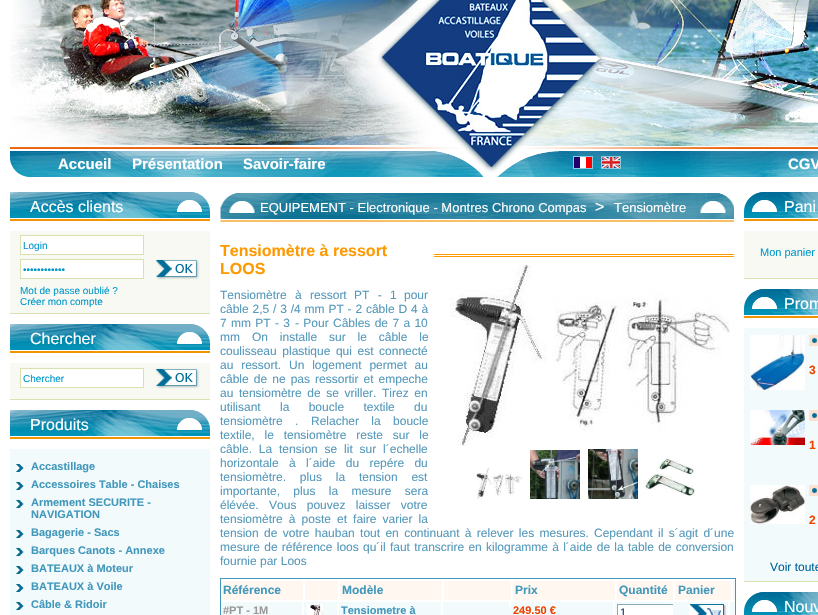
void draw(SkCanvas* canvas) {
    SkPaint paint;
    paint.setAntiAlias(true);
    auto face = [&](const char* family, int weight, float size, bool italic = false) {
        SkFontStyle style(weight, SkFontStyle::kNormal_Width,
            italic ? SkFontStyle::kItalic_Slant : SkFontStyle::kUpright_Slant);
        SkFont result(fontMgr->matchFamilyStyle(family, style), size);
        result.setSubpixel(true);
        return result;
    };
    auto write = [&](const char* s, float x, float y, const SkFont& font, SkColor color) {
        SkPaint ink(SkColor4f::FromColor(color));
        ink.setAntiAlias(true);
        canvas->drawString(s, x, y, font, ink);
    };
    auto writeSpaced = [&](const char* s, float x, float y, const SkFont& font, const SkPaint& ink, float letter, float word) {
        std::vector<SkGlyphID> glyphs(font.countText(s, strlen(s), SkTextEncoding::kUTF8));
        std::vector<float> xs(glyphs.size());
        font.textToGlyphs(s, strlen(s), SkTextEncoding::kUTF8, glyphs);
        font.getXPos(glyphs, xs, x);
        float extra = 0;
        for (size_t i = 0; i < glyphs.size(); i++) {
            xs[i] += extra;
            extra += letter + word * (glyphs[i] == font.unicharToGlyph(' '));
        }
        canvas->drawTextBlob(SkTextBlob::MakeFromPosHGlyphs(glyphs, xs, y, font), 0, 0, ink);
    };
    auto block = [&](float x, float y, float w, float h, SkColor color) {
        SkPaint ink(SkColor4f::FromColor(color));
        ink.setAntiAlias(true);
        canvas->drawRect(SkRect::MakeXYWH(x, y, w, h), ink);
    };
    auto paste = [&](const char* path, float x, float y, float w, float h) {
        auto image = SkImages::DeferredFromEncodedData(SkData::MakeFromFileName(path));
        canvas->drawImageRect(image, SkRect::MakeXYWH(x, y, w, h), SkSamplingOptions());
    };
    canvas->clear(SK_ColorWHITE);
    paste("pic1.png", 10, 0, 808, 151);
    paste("pic2.png", 10, 151, 808, 26);
    auto kFont1 = face("Liberation Sans", 700, 15);
    write("Accueil", 58, 169, kFont1, SK_ColorWHITE);
    write("Présentation", 132, 169, kFont1, SK_ColorWHITE);
    write("Savoir-faire", 243, 169, kFont1, SK_ColorWHITE);
    paint.setStyle(SkPaint::kStroke_Style);
    paint.setStrokeWidth(1);
    paint.setColor(SkColorSetRGB(136, 204, 221));
    canvas->drawRect(SkRect::MakeXYWH(573.5f, 156.5f, 19, 12), paint);
    canvas->drawRect(SkRect::MakeXYWH(601.5f, 156.5f, 19, 12), paint);
    paste("pic3.png", 574, 157, 18, 11);
    paste("pic4.png", 602, 157, 18, 11);
    write("CGV", 788, 169, kFont1, SK_ColorWHITE);
    paste("pic5.png", 10, 192, 200, 29);
    auto kFont2 = face("Liberation Sans", 400, 16);
    write("Accès clients", 30, 212, kFont2, SK_ColorWHITE);
    block(10, 231, 200, 82, SkColorSetRGB(248, 249, 243));
    block(10, 313, 200, 1, SkColorSetRGB(217, 225, 176));
    paint.setStyle(SkPaint::kFill_Style);
    paint.setColor(SK_ColorWHITE);
    canvas->drawRect(SkRect::MakeXYWH(20.5f, 235.5f, 123, 19), paint);
    paint.setStyle(SkPaint::kStroke_Style);
    paint.setColor(SkColorSetRGB(217, 225, 176));
    canvas->drawRect(SkRect::MakeXYWH(20.5f, 235.5f, 123, 19), paint);
    auto kFont3 = face("Liberation Sans", 400, 10);
    write("Login", 23, 249, kFont3, SkColorSetRGB(0, 153, 204));
    paint.setStyle(SkPaint::kFill_Style);
    paint.setColor(SK_ColorWHITE);
    canvas->drawRect(SkRect::MakeXYWH(20.5f, 259.5f, 123, 19), paint);
    paint.setStyle(SkPaint::kStroke_Style);
    paint.setColor(SkColorSetRGB(217, 225, 176));
    canvas->drawRect(SkRect::MakeXYWH(20.5f, 259.5f, 123, 19), paint);
    write("••••••••••••", 23, 273, kFont3, SkColorSetRGB(0, 153, 204));
    paste("pic6.png", 156, 259, 44, 21);
    write("Mot de passe oublié ?", 20, 294, kFont3, SkColorSetRGB(0, 153, 204));
    write("Créer mon compte", 20, 305, kFont3, SkColorSetRGB(0, 153, 204));
    paste("pic5.png", 10, 324, 200, 29);
    write("Chercher", 30, 344, kFont2, SK_ColorWHITE);
    block(10, 363, 200, 36, SkColorSetRGB(248, 249, 243));
    block(10, 399, 200, 1, SkColorSetRGB(217, 225, 176));
    paint.setStyle(SkPaint::kFill_Style);
    paint.setColor(SK_ColorWHITE);
    canvas->drawRect(SkRect::MakeXYWH(20.5f, 368.5f, 123, 19), paint);
    paint.setStyle(SkPaint::kStroke_Style);
    paint.setColor(SkColorSetRGB(217, 225, 176));
    canvas->drawRect(SkRect::MakeXYWH(20.5f, 368.5f, 123, 19), paint);
    write("Chercher", 23, 382, kFont3, SkColorSetRGB(0, 153, 204));
    paste("pic6.png", 156, 368, 44, 21);
    paste("pic5.png", 10, 410, 200, 29);
    write("Produits", 30, 430, kFont2, SK_ColorWHITE);
    block(10, 449, 200, 166, SkColorSetRGB(242, 250, 252));
    paste("pic7.png", 16, 464, 8, 8);
    auto kFont4 = face("Liberation Sans", 700, 11);
    write("Accastillage", 31, 470, kFont4, SkColorSetRGB(66, 152, 187));
    paste("pic7.png", 16, 482, 8, 8);
    write("Accessoires Table - Chaises", 31, 488, kFont4, SkColorSetRGB(66, 152, 187));
    paste("pic7.png", 16, 500, 8, 8);
    write("Armement SECURITE -", 31, 506, kFont4, SkColorSetRGB(66, 152, 187));
    write("NAVIGATION", 31, 518, kFont4, SkColorSetRGB(66, 152, 187));
    paste("pic7.png", 16, 530, 8, 8);
    write("Bagagerie - Sacs", 31, 536, kFont4, SkColorSetRGB(66, 152, 187));
    paste("pic7.png", 16, 548, 8, 8);
    write("Barques Canots - Annexe", 31, 554, kFont4, SkColorSetRGB(66, 152, 187));
    paste("pic7.png", 16, 566, 8, 8);
    write("BATEAUX à Moteur", 31, 572, kFont4, SkColorSetRGB(66, 152, 187));
    paste("pic7.png", 16, 584, 8, 8);
    write("BATEAUX à Voile", 31, 590, kFont4, SkColorSetRGB(66, 152, 187));
    paste("pic7.png", 16, 602, 8, 8);
    write("Câble & Ridoir", 31, 608, kFont4, SkColorSetRGB(66, 152, 187));
    paste("pic8.png", 220, 193, 514, 29);
    auto kFont5 = face("Liberation Sans", 400, 13);
    write("EQUIPEMENT - Electronique - Montres Chrono Compas", 260, 212, kFont5, SK_ColorWHITE);
    write(">", 595, 212, kFont2, SK_ColorWHITE);
    write("Tensiomètre", 614, 212, kFont5, SK_ColorWHITE);
    auto kFont6 = face("Liberation Sans", 700, 16);
    write("Tensiomètre à ressort", 220, 256, kFont6, SkColorSetRGB(255, 153, 0));
    write("LOOS", 220, 274, kFont6, SkColorSetRGB(255, 153, 0));
    auto kFont7 = face("Liberation Sans", 400, 12);
    paint.setStyle(SkPaint::kFill_Style);
    paint.setColor(SkColorSetRGB(85, 153, 187));
    writeSpaced("Tensiomètre à ressort", 220, 299, kFont7, paint, 0, 5);
    writeSpaced("PT - 1", 354, 299, kFont7, paint, 0, 5);
    write("pour", 404, 299, kFont7, SkColorSetRGB(85, 153, 187));
    writeSpaced("câble 2,5 / 3 /4 mm PT - 2 câble D 4 à", 220, 313, kFont7, paint, 0, 0.5f);
    writeSpaced("7 mm PT - 3", 220, 327, kFont7, paint, 0, 1);
    writeSpaced("- Pour Câbles de 7 a 10", 295, 327, kFont7, paint, 0, 1);
    write("mm", 220, 341, kFont7, SkColorSetRGB(85, 153, 187));
    writeSpaced("On installe sur le câble le", 252, 341, kFont7, paint, 0, 8.5f);
    writeSpaced("coulisseau plastique qui est connecté", 220, 355, kFont7, paint, 0, 2.25f);
    writeSpaced("au ressort. Un logement permet au", 220, 369, kFont7, paint, 0, 4.5f);
    writeSpaced("câble de ne pas ressortir et empeche", 220, 383, kFont7, paint, 0, 1.75f);
    writeSpaced("au tensiomètre de se vriller. Tirez en", 220, 397, kFont7, paint, 0, 2.25f);
    writeSpaced("utilisant la boucle textile du", 220, 411, kFont7, paint, 0, 16);
    writeSpaced("tensiomètre .", 220, 425, kFont7, paint, 0, 9);
    writeSpaced("Relacher la boucle", 311, 425, kFont7, paint, 0, 9);
    writeSpaced("textile, le tensiomètre reste sur le", 220, 439, kFont7, paint, 0, 6.5f);
    writeSpaced("câble. La tension se lit sur l´echelle", 220, 453, kFont7, paint, 0, 3.5f);
    writeSpaced("horizontale à l´aide du repére du", 220, 467, kFont7, paint, 0, 7);
    writeSpaced("tensiomètre. plus la tension est", 220, 481, kFont7, paint, 0, 10.5f);
    writeSpaced("importante, plus la mesure sera", 220, 495, kFont7, paint, 0, 10);
    writeSpaced("élévée. Vous pouvez laisser votre", 220, 509, kFont7, paint, 0, 7);
    writeSpaced("tensiomètre à poste et faire varier la", 220, 523, kFont7, paint, 0, 2.75f);
    writeSpaced("tension de votre hauban tout en continuant à relever les mesures.", 220, 537, kFont7, paint, 0, 2);
    writeSpaced("Cependant il s´agit d´une", 594, 537, kFont7, paint, 0, 2);
    writeSpaced("mesure de référence loos qu´il faut transcrire en kilogramme à l´aide de la table de conversion", 220, 551, kFont7, paint, 0, 0.9f);
    write("fournie par Loos", 220, 565, kFont7, SkColorSetRGB(85, 153, 187));
    block(434, 254, 300, 1, SkColorSetRGB(255, 153, 0));
    block(434, 256, 300, 1, SkColorSetRGB(255, 153, 0));
    paste("pic9.png", 450, 265, 280, 182);
    paste("pic10.png", 476, 467, 47, 32);
    paste("pic11.png", 530, 450, 50, 49);
    paste("pic12.png", 588, 449, 50, 50);
    paste("pic13.png", 645, 457, 50, 39);
    block(221, 581, 514, 34, SkColorSetRGB(242, 250, 252));
    paint.setStyle(SkPaint::kStroke_Style);
    paint.setColor(SkColorSetRGB(66, 152, 187));
    canvas->drawRect(SkRect::MakeXYWH(220.5f, 578.5f, 515, 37), paint);
    block(221, 581, 82, 19, SkColorSetRGB(255, 247, 240));
    block(303, 581, 2, 19, SK_ColorWHITE);
    auto kFont8 = face("Liberation Sans", 700, 12);
    write("Référence", 223, 594, kFont8, SkColorSetRGB(66, 152, 187));
    block(305, 581, 33, 19, SkColorSetRGB(255, 247, 240));
    block(338, 581, 2, 19, SK_ColorWHITE);
    block(340, 581, 102, 19, SkColorSetRGB(255, 247, 240));
    block(442, 581, 2, 19, SK_ColorWHITE);
    write("Modèle", 342, 594, kFont8, SkColorSetRGB(66, 152, 187));
    block(444, 581, 67, 19, SkColorSetRGB(255, 247, 240));
    block(511, 581, 2, 19, SK_ColorWHITE);
    block(513, 581, 102, 19, SkColorSetRGB(255, 247, 240));
    block(615, 581, 2, 19, SK_ColorWHITE);
    write("Prix", 515, 594, kFont8, SkColorSetRGB(66, 152, 187));
    block(617, 581, 56, 19, SkColorSetRGB(255, 247, 240));
    block(673, 581, 2, 19, SK_ColorWHITE);
    write("Quantité", 619, 594, kFont8, SkColorSetRGB(66, 152, 187));
    block(675, 581, 56, 19, SkColorSetRGB(255, 247, 240));
    block(731, 581, 2, 19, SK_ColorWHITE);
    write("Panier", 678, 594, kFont8, SkColorSetRGB(66, 152, 187));
    block(221, 600, 514, 2, SK_ColorWHITE);
    block(302, 602, 2, 13, SK_ColorWHITE);
    write("#PT - 1M", 223, 614, kFont4, SkColorSetRGB(153, 153, 153));
    block(337, 602, 2, 13, SK_ColorWHITE);
    paste("pic14.png", 307, 604, 16, 11);
    block(441, 602, 2, 13, SK_ColorWHITE);
    write("Tensiometre à", 341, 614, kFont4, SkColorSetRGB(66, 152, 187));
    block(509, 602, 2, 5, SK_ColorWHITE);
    block(613, 602, 2, 13, SK_ColorWHITE);
    write("249.50 €", 513, 614, kFont4, SkColorSetRGB(238, 68, 0));
    block(671, 602, 2, 2, SK_ColorWHITE);
    block(618, 605, 55, 10, SK_ColorWHITE);
    block(617, 604, 58, 1, SkColorSetRGB(136, 170, 187));
    block(617, 604, 1, 11, SkColorSetRGB(136, 170, 187));
    auto kFont9 = face("Liberation Sans", 400, 11);
    write("1", 620, 616, kFont9, SkColorSetRGB(0, 51, 102));
    block(673, 604, 2, 1, SkColorSetRGB(242, 250, 252));
    block(728, 602, 2, 13, SK_ColorWHITE);
    paste("pic15.png", 689, 604, 37, 11);
    paste("pic16.png", 744, 192, 74, 29);
    write("Pani", 784, 212, kFont2, SK_ColorWHITE);
    block(744, 231, 74, 47, SkColorSetRGB(248, 249, 243));
    block(744, 278, 74, 1, SkColorSetRGB(217, 225, 176));
    write("Mon panier", 760, 256, kFont9, SkColorSetRGB(0, 153, 204));
    paste("pic16.png", 744, 289, 74, 29);
    write("Prom", 784, 309, kFont2, SK_ColorWHITE);
    block(744, 328, 74, 253, SkColorSetRGB(242, 250, 252));
    block(744, 581, 74, 1, SkColorSetRGB(217, 225, 176));
    paste("pic17.png", 750, 335, 55, 55);
    paste("pic18.png", 809, 335, 9, 11);
    write("3", 809, 374, kFont8, SkColorSetRGB(238, 68, 0));
    paste("pic19.png", 750, 410, 55, 35);
    paste("pic18.png", 809, 410, 9, 11);
    write("1", 809, 449, kFont8, SkColorSetRGB(238, 68, 0));
    paste("pic20.png", 750, 485, 55, 39);
    paste("pic18.png", 809, 485, 9, 11);
    write("2", 809, 524, kFont8, SkColorSetRGB(238, 68, 0));
    write("Voir toute", 770, 571, kFont7, SkColorSetRGB(0, 102, 153));
    paste("pic21.png", 744, 592, 74, 23);
    write("Nouv", 784, 612, kFont2, SK_ColorWHITE);
}
